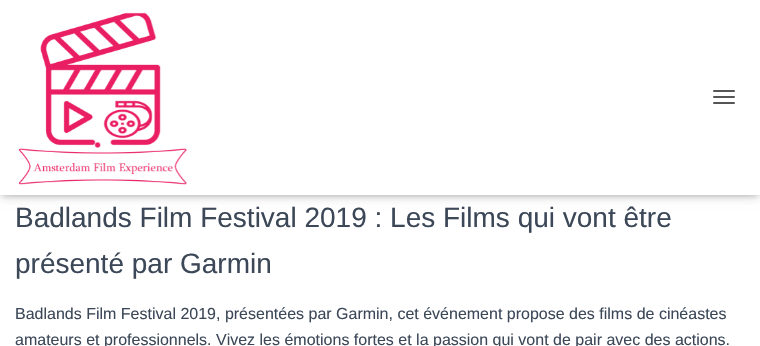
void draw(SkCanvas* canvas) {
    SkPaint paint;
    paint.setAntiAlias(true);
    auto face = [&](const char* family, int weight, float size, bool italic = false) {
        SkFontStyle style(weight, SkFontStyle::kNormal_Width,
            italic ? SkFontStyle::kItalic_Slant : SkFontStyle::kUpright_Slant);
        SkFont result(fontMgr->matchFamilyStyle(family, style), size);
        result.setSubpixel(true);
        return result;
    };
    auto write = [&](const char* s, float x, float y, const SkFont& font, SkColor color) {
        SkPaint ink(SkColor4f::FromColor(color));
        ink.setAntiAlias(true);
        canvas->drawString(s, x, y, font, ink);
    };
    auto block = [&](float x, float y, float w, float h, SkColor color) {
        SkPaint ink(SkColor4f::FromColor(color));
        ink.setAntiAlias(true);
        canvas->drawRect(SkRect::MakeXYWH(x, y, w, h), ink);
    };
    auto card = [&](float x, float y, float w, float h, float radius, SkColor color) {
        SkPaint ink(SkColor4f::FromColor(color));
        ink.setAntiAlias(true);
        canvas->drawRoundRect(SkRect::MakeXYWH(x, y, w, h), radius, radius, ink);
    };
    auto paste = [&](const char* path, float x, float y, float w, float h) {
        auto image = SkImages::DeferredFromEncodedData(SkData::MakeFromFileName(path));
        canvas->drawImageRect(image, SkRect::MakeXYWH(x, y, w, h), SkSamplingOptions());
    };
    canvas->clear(SK_ColorWHITE);
    paint.setColor(SkColorSetARGB(26, 0, 0, 0));
    paint.setMaskFilter(SkMaskFilter::MakeBlur(kNormal_SkBlurStyle, 2.5f));
    canvas->drawRect(SkRect::MakeXYWH(2, 6, 756, 191), paint);
    paint.setMaskFilter(nullptr);
    paint.setColor(SkColorSetARGB(31, 0, 0, 0));
    paint.setMaskFilter(SkMaskFilter::MakeBlur(kNormal_SkBlurStyle, 5));
    canvas->drawRect(SkRect::MakeXYWH(0, 1, 760, 195), paint);
    paint.setMaskFilter(nullptr);
    paint.setColor(SkColorSetARGB(107, 0, 0, 0));
    paint.setMaskFilter(SkMaskFilter::MakeBlur(kNormal_SkBlurStyle, 5));
    canvas->drawRect(SkRect::MakeXYWH(6, 7, 748, 183), paint);
    paint.setMaskFilter(nullptr);
    block(0, 0, 760, 195, SK_ColorWHITE);
    paste("pic1.png", 18, 12, 169, 173);
    card(713, 90, 22, 2, 1, SkColorSetRGB(85, 85, 85));
    card(713, 96, 22, 2, 1, SkColorSetRGB(85, 85, 85));
    card(713, 102, 22, 2, 1, SkColorSetRGB(85, 85, 85));
    auto kFont1 = face("Liberation Sans", 400, 28);
    write("Badlands Film Festival 2019 : Les Films qui vont être", 15, 227, kFont1, SkColorSetRGB(60, 72, 88));
    write("présenté par Garmin", 15, 273, kFont1, SkColorSetRGB(60, 72, 88));
    auto kFont2 = face("Liberation Sans", 400, 16);
    write("Badlands Film Festival 2019, présentées par Garmin, cet événement propose des films de cinéastes", 15, 319, kFont2, SkColorSetRGB(60, 72, 88));
    write("amateurs et professionnels. Vivez les émotions fortes et la passion qui vont de pair avec des actions.", 15, 345, kFont2, SkColorSetRGB(60, 72, 88));
}
